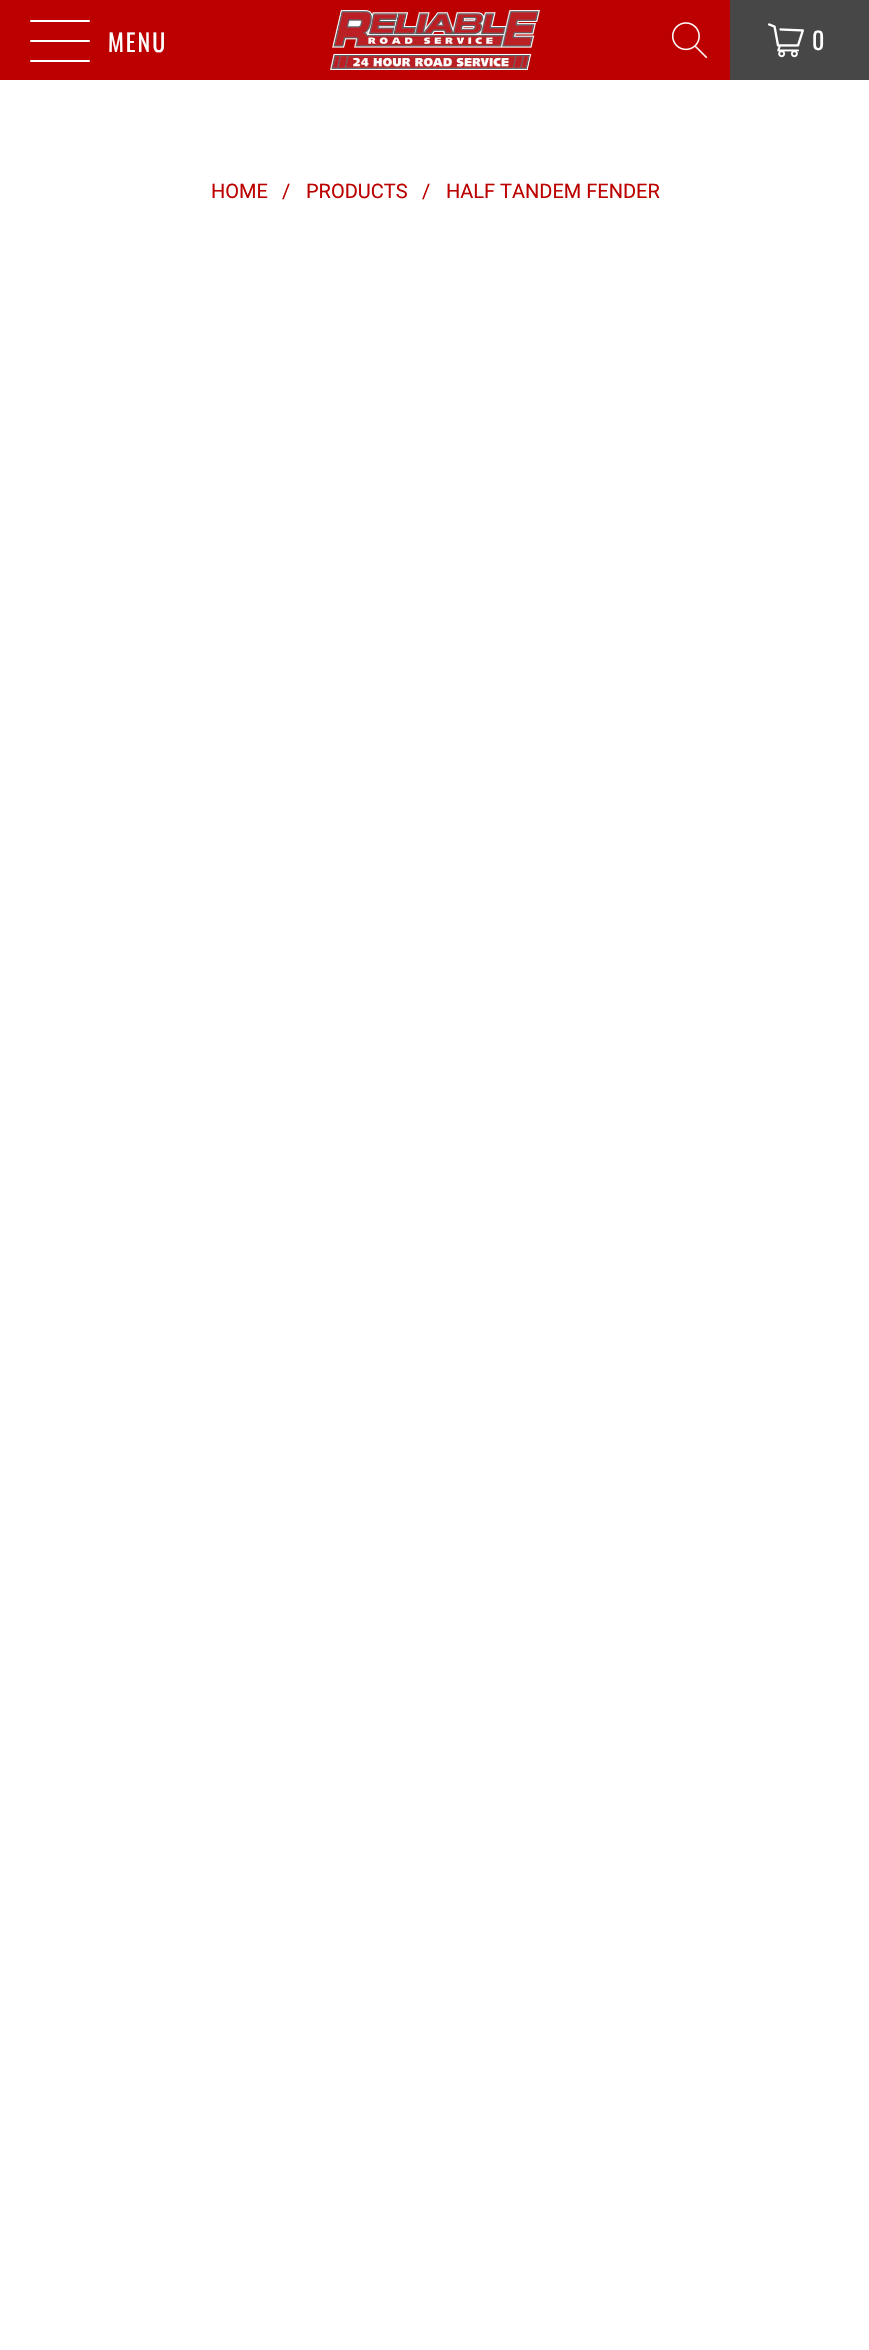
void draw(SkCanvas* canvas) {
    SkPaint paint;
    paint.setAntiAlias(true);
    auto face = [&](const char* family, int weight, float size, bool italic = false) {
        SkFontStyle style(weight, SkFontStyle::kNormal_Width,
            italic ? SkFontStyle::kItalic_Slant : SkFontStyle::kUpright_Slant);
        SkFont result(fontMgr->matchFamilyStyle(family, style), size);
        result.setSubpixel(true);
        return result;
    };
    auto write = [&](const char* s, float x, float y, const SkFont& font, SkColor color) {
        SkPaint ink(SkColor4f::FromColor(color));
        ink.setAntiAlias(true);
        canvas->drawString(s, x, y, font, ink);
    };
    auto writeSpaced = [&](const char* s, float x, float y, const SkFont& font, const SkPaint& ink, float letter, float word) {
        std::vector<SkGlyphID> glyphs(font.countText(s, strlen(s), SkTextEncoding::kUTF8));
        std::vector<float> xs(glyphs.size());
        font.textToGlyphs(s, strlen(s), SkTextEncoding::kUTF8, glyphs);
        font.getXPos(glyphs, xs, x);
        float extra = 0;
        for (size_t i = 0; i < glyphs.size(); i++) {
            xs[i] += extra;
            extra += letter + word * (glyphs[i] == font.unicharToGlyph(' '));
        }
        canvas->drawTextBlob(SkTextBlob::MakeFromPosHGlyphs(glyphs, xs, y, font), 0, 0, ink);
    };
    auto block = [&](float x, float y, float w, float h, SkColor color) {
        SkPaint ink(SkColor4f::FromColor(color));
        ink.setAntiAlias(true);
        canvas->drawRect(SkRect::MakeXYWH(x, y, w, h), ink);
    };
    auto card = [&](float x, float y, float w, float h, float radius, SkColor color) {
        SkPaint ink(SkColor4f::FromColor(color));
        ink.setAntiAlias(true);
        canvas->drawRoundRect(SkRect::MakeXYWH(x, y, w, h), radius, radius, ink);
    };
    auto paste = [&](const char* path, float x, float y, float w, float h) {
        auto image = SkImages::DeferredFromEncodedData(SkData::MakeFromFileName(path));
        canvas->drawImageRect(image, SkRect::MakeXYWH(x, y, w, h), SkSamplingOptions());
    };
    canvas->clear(SK_ColorWHITE);
    block(0, 0, 730, 80, SkColorSetRGB(188, 0, 0));
    card(30, 20, 60, 2, 1, SK_ColorWHITE);
    card(30, 40, 60, 2, 1, SK_ColorWHITE);
    card(30, 60, 60, 2, 1, SK_ColorWHITE);
    auto kFont1 = face("Oswald", 400, 24);
    paint.setColor(SK_ColorWHITE);
    writeSpaced("MENU", 108, 52, kFont1, paint, 2, 0);
    paste("pic1.png", 330, 10, 210, 60);
    paste("pic2.png", 671, 22, 37, 37);
    block(730, 0, 139, 80, SkColorSetRGB(71, 71, 71));
    paste("pic3.png", 768, 23, 36, 35);
    writeSpaced("0", 812, 50, kFont1, paint, 2, 0);
    auto kFont2 = face("Roboto", 400, 20);
    write("HOME", 211, 198, kFont2, SkColorSetRGB(188, 0, 0));
    write("/", 282, 198, kFont2, SkColorSetRGB(188, 0, 0));
    write("PRODUCTS", 306, 198, kFont2, SkColorSetRGB(188, 0, 0));
    write("/", 422, 198, kFont2, SkColorSetRGB(188, 0, 0));
    write("HALF TANDEM FENDER", 446, 198, kFont2, SkColorSetRGB(188, 0, 0));
}
